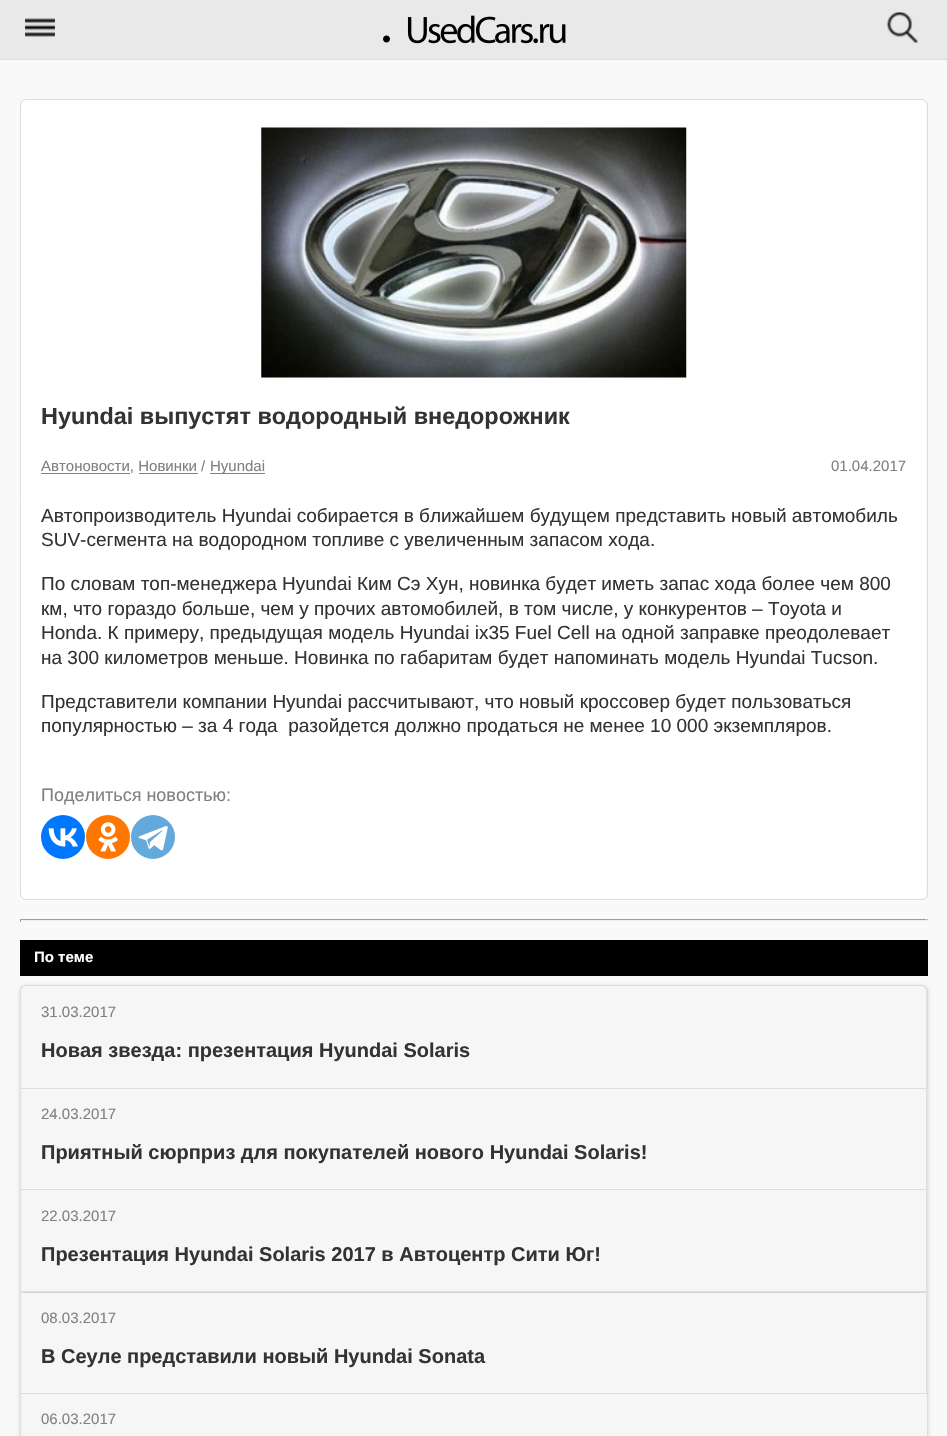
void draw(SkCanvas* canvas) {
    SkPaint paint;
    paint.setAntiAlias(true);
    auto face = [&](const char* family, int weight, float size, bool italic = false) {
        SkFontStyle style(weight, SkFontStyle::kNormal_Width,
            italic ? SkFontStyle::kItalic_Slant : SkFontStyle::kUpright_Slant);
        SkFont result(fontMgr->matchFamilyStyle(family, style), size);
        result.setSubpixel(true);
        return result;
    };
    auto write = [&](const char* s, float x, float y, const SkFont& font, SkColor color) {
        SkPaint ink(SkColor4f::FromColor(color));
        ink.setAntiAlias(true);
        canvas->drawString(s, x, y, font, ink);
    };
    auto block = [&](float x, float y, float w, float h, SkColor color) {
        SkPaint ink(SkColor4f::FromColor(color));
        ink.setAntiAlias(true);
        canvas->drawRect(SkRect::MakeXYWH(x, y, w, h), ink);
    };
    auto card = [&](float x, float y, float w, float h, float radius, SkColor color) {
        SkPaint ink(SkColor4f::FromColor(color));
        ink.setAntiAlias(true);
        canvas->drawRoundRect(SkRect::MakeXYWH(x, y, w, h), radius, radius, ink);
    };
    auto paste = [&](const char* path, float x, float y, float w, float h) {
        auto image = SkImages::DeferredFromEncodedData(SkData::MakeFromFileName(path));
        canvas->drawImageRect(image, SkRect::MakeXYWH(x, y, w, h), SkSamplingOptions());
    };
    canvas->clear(SkColorSetRGB(249, 249, 249));
    block(0, 0, 947, 59, SkColorSetRGB(233, 233, 233));
    block(0, 59, 947, 1, SkColorSetRGB(221, 221, 221));
    paste("pic1.png", 25, 18, 30, 19);
    paste("pic2.png", 383, 15, 183, 29);
    paste("pic3.png", 887, 12, 31, 31);
    card(21, 100, 905, 799, 5, SK_ColorWHITE);
    paint.setStyle(SkPaint::kStroke_Style);
    paint.setStrokeWidth(1);
    paint.setColor(SkColorSetRGB(221, 221, 221));
    canvas->drawRoundRect(SkRect::MakeXYWH(20.5f, 99.5f, 907, 800), 5.5f, 5.5f, paint);
    paste("pic4.png", 261, 127, 426, 251);
    auto kFont1 = face("Liberation Sans", 700, 23.4f);
    write("Hyundai выпустят водородный внедорожник", 41, 424, kFont1, SkColorSetRGB(51, 51, 51));
    auto kFont2 = face("Liberation Sans", 400, 15);
    write("Автоновости, Новинки /", 41, 471, kFont2, SkColorSetRGB(128, 128, 128));
    block(41, 473, 89, 1, SkColorSetRGB(128, 128, 128));
    block(139, 473, 59, 1, SkColorSetRGB(128, 128, 128));
    block(210, 473, 55, 1, SkColorSetRGB(128, 128, 128));
    write("Hyundai", 210, 471, kFont2, SkColorSetRGB(128, 128, 128));
    write("01.04.2017", 831, 471, kFont2, SkColorSetRGB(128, 128, 128));
    auto kFont3 = face("Liberation Sans", 400, 19);
    write("Автопроизводитель Hyundai собирается в ближайшем будущем представить новый автомобиль", 41, 522, kFont3, SkColorSetRGB(51, 51, 51));
    write("SUV-сегмента на водородном топливе с увеличенным запасом хода.", 41, 546, kFont3, SkColorSetRGB(51, 51, 51));
    write("По словам топ-менеджера Hyundai Ким Сэ Хун, новинка будет иметь запас хода более чем 800", 41, 590, kFont3, SkColorSetRGB(51, 51, 51));
    write("км, что гораздо больше, чем у прочих автомобилей, в том числе, у конкурентов – Toyota и", 41, 615, kFont3, SkColorSetRGB(51, 51, 51));
    write("Honda. К примеру, предыдущая модель Hyundai ix35 Fuel Cell на одной заправке преодолевает", 41, 639, kFont3, SkColorSetRGB(51, 51, 51));
    write("на 300 километров меньше. Новинка по габаритам будет напоминать модель Hyundai Tucson.", 41, 664, kFont3, SkColorSetRGB(51, 51, 51));
    write("Представители компании Hyundai рассчитывают, что новый кроссовер будет пользоваться", 41, 708, kFont3, SkColorSetRGB(51, 51, 51));
    write("популярностью – за 4 года  разойдется должно продаться не менее 10 000 экземпляров.", 41, 732, kFont3, SkColorSetRGB(51, 51, 51));
    auto kFont4 = face("Liberation Sans", 400, 18);
    write("Поделиться новостью:", 41, 801, kFont4, SkColorSetRGB(128, 128, 128));
    paint.setStyle(SkPaint::kFill_Style);
    paint.setColor(SkColorSetRGB(0, 119, 255));
    canvas->drawCircle(63, 837, 22, paint);
    paste("pic5.png", 48, 828, 30, 19);
    paint.setColor(SkColorSetRGB(255, 119, 0));
    canvas->drawCircle(108, 837, 22, paint);
    paste("pic6.png", 98, 822, 20, 30);
    paint.setColor(SkColorSetRGB(100, 169, 220));
    canvas->drawCircle(153, 837, 22, paint);
    paste("pic7.png", 138, 826, 30, 25);
    block(20, 919, 908, 1, SkColorSetRGB(159, 159, 159));
    block(926, 919, 1, 3, SkColorSetRGB(238, 238, 238));
    block(20, 920, 908, 1, SkColorSetRGB(238, 238, 238));
    block(20, 919, 1, 3, SkColorSetRGB(159, 159, 159));
    block(20, 940, 908, 36, SK_ColorBLACK);
    auto kFont5 = face("Liberation Sans", 700, 15);
    write("По теме", 34, 962, kFont5, SK_ColorWHITE);
    paint.setColor(SkColorSetARGB(38, 0, 0, 0));
    paint.setMaskFilter(SkMaskFilter::MakeBlur(kNormal_SkBlurStyle, 2));
    canvas->drawRoundRect(SkRect::MakeXYWH(20, 986, 908, 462), 6, 6, paint);
    paint.setMaskFilter(nullptr);
    paint.setColor(SkColorSetRGB(246, 246, 246));
    canvas->drawPath(SkPathBuilder().moveTo(26, 986).lineTo(921, 986).cubicTo(924, 986, 926, 988, 926, 991).lineTo(926, 1088).lineTo(21, 1088).lineTo(21, 991).cubicTo(21, 988, 23, 986, 26, 986).close().detach(), paint);
    paint.setColor(SkColorSetRGB(221, 221, 221));
    canvas->drawPath(SkPathBuilder(SkPathFillType::kEvenOdd).moveTo(26, 985).lineTo(921, 985).cubicTo(925, 985, 928, 988, 928, 991).lineTo(928, 1088).lineTo(20, 1088).lineTo(20, 991).cubicTo(20, 988, 23, 985, 26, 985).close().moveTo(26, 986).lineTo(921, 986).cubicTo(924, 986, 926, 988, 926, 991).lineTo(926, 1088).lineTo(21, 1088).lineTo(21, 991).cubicTo(21, 988, 23, 986, 26, 986).close().detach(), paint);
    write("31.03.2017", 41, 1017, kFont2, SkColorSetRGB(128, 128, 128));
    auto kFont6 = face("Liberation Sans", 700, 20);
    write("Новая звезда: презентация Hyundai Solaris", 41, 1057, kFont6, SkColorSetRGB(51, 51, 51));
    block(21, 1089, 905, 100, SkColorSetRGB(246, 246, 246));
    block(20, 1088, 908, 1, SkColorSetRGB(221, 221, 221));
    block(20, 1088, 1, 101, SkColorSetRGB(221, 221, 221));
    write("24.03.2017", 41, 1119, kFont2, SkColorSetRGB(128, 128, 128));
    write("Приятный сюрприз для покупателей нового Hyundai Solaris!", 41, 1159, kFont6, SkColorSetRGB(51, 51, 51));
    block(21, 1190, 905, 101, SkColorSetRGB(246, 246, 246));
    block(20, 1189, 908, 1, SkColorSetRGB(221, 221, 221));
    block(20, 1189, 1, 102, SkColorSetRGB(221, 221, 221));
    write("22.03.2017", 41, 1221, kFont2, SkColorSetRGB(128, 128, 128));
    write("Презентация Hyundai Solaris 2017 в Автоцентр Сити Юг!", 41, 1261, kFont6, SkColorSetRGB(51, 51, 51));
    block(21, 1293, 905, 100, SkColorSetRGB(246, 246, 246));
    block(20, 1291, 908, 1, SkColorSetRGB(221, 221, 221));
    block(20, 1291, 1, 102, SkColorSetRGB(221, 221, 221));
    write("08.03.2017", 41, 1323, kFont2, SkColorSetRGB(128, 128, 128));
    write("В Сеуле представили новый Hyundai Sonata", 41, 1363, kFont6, SkColorSetRGB(51, 51, 51));
    paint.setColor(SkColorSetRGB(246, 246, 246));
    canvas->drawRect(SkRect::MakeXYWH(20.5f, 1393.5f, 907, 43), paint);
    paint.setStyle(SkPaint::kStroke_Style);
    paint.setColor(SkColorSetRGB(221, 221, 221));
    canvas->drawRect(SkRect::MakeXYWH(20.5f, 1393.5f, 907, 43), paint);
    write("06.03.2017", 41, 1424, kFont2, SkColorSetRGB(128, 128, 128));
}
